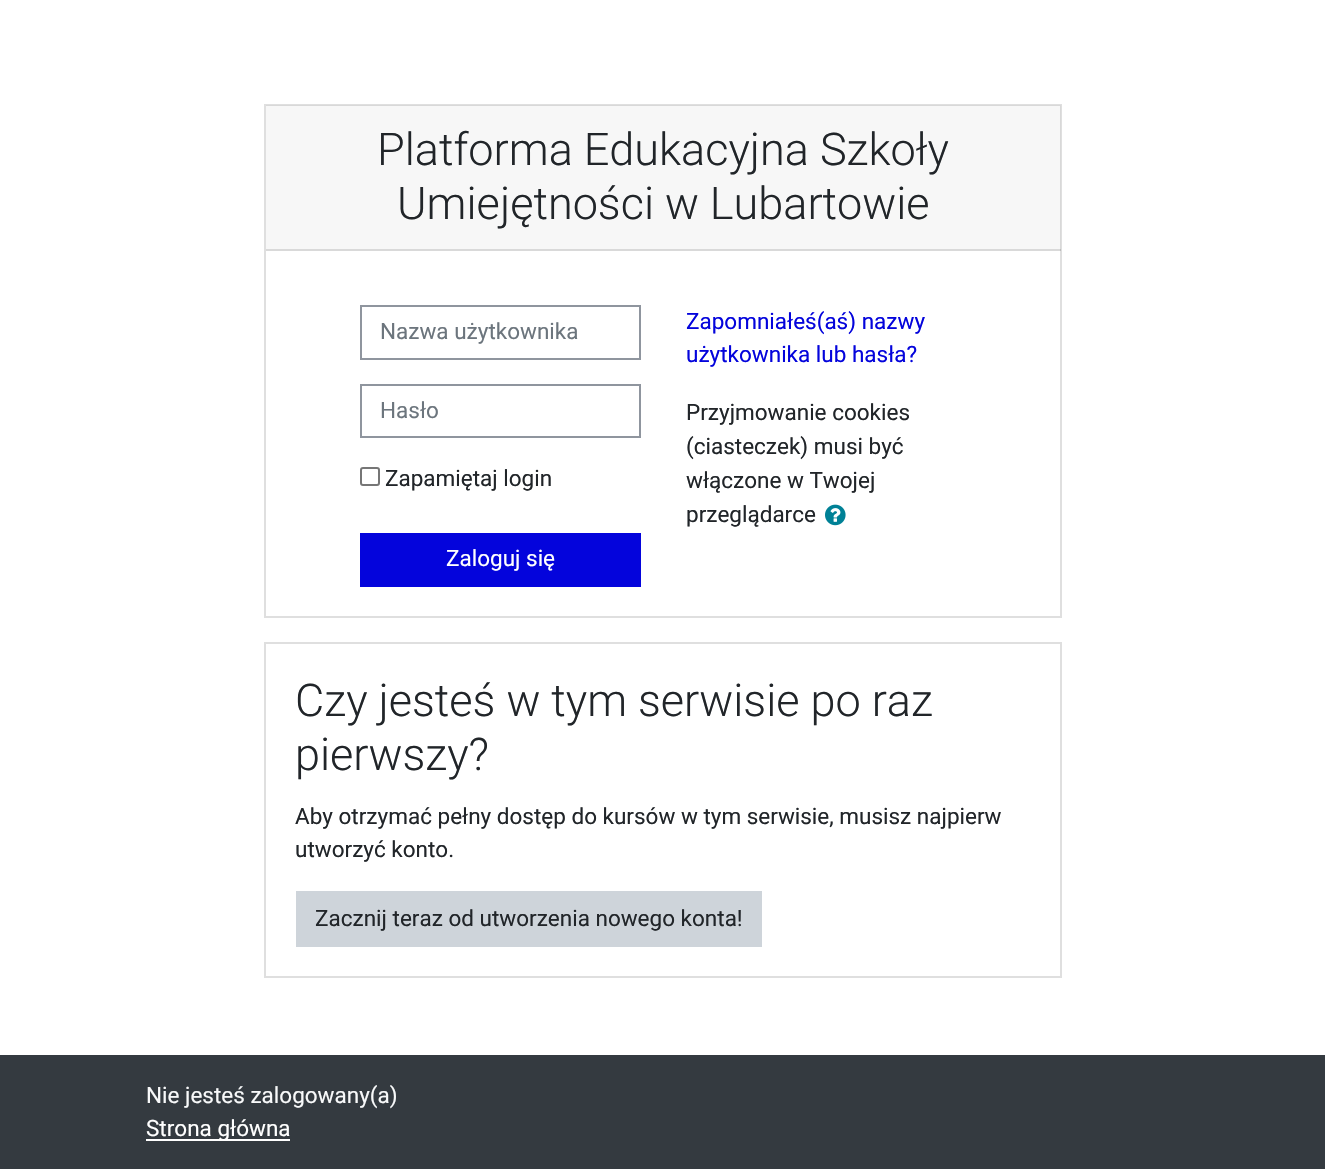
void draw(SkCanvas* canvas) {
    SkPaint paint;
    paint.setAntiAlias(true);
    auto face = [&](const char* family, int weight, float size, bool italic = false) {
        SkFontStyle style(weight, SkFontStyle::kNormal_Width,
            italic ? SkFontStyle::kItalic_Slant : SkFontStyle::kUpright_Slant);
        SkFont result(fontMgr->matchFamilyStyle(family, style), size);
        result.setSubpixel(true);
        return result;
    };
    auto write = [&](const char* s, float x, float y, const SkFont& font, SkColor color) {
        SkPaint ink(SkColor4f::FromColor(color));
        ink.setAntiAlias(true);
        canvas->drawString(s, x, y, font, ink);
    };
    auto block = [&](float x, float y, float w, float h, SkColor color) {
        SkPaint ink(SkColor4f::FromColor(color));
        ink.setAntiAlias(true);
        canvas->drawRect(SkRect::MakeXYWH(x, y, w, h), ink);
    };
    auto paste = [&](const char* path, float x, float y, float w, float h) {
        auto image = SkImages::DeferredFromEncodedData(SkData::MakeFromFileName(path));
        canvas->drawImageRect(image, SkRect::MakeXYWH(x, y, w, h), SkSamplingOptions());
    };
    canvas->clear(SK_ColorWHITE);
    paint.setStyle(SkPaint::kStroke_Style);
    paint.setStrokeWidth(2);
    paint.setColor(SkColorSetRGB(223, 223, 223));
    canvas->drawRect(SkRect::MakeXYWH(265, 105, 796, 512), paint);
    block(266, 105, 795, 146, SkColorSetARGB(8, 0, 0, 0));
    block(266, 249, 795, 2, SkColorSetARGB(31, 0, 0, 0));
    auto kFont1 = face("Roboto", 300, 45);
    write("Platforma Edukacyjna Szkoły", 377, 165, kFont1, SkColorSetRGB(33, 37, 41));
    write("Umiejętności w Lubartowie", 397, 219, kFont1, SkColorSetRGB(33, 37, 41));
    paint.setColor(SkColorSetRGB(143, 149, 158));
    canvas->drawRect(SkRect::MakeXYWH(361, 306, 279, 53), paint);
    auto kFont2 = face("Roboto", 400, 22.5f);
    write("Nazwa użytkownika", 380, 339, kFont2, SkColorSetRGB(108, 117, 125));
    canvas->drawRect(SkRect::MakeXYWH(361, 385, 279, 52), paint);
    write("Hasło", 380, 418, kFont2, SkColorSetRGB(108, 117, 125));
    paint.setColor(SkColorSetRGB(118, 118, 118));
    canvas->drawRoundRect(SkRect::MakeXYWH(361, 468, 18, 17), 2, 2, paint);
    write("Zapamiętaj login", 385, 486, kFont2, SkColorSetRGB(33, 37, 41));
    block(360, 533, 281, 54, SkColorSetRGB(4, 4, 220));
    write("Zaloguj się", 446, 566, kFont2, SK_ColorWHITE);
    write("Zapomniałeś(aś) nazwy", 686, 329, kFont2, SkColorSetRGB(4, 4, 220));
    write("użytkownika lub hasła?", 686, 362, kFont2, SkColorSetRGB(4, 4, 220));
    write("Przyjmowanie cookies", 686, 420, kFont2, SkColorSetRGB(33, 37, 41));
    write("(ciasteczek) musi być", 686, 454, kFont2, SkColorSetRGB(33, 37, 41));
    write("włączone w Twojej", 686, 488, kFont2, SkColorSetRGB(33, 37, 41));
    write("przeglądarce", 686, 522, kFont2, SkColorSetRGB(33, 37, 41));
    paste("pic1.png", 825, 504, 21, 22);
    paint.setColor(SkColorSetRGB(223, 223, 223));
    canvas->drawRect(SkRect::MakeXYWH(265, 643, 796, 334), paint);
    write("Czy jesteś w tym serwisie po raz", 295, 716, kFont1, SkColorSetRGB(33, 37, 41));
    write("pierwszy?", 295, 770, kFont1, SkColorSetRGB(33, 37, 41));
    write("Aby otrzymać pełny dostęp do kursów w tym serwisie, musisz najpierw", 295, 824, kFont2, SkColorSetRGB(33, 37, 41));
    write("utworzyć konto.", 295, 857, kFont2, SkColorSetRGB(33, 37, 41));
    block(296, 891, 466, 56, SkColorSetRGB(206, 212, 218));
    write("Zacznij teraz od utworzenia nowego konta!", 315, 926, kFont2, SkColorSetRGB(33, 37, 41));
    block(0, 1055, 1325, 114, SkColorSetRGB(52, 58, 64));
    write("Nie jesteś zalogowany(a)", 146, 1103, kFont2, SkColorSetRGB(248, 249, 250));
    block(146, 1139, 144, 2, SK_ColorWHITE);
    write("Strona główna", 146, 1136, kFont2, SK_ColorWHITE);
}
